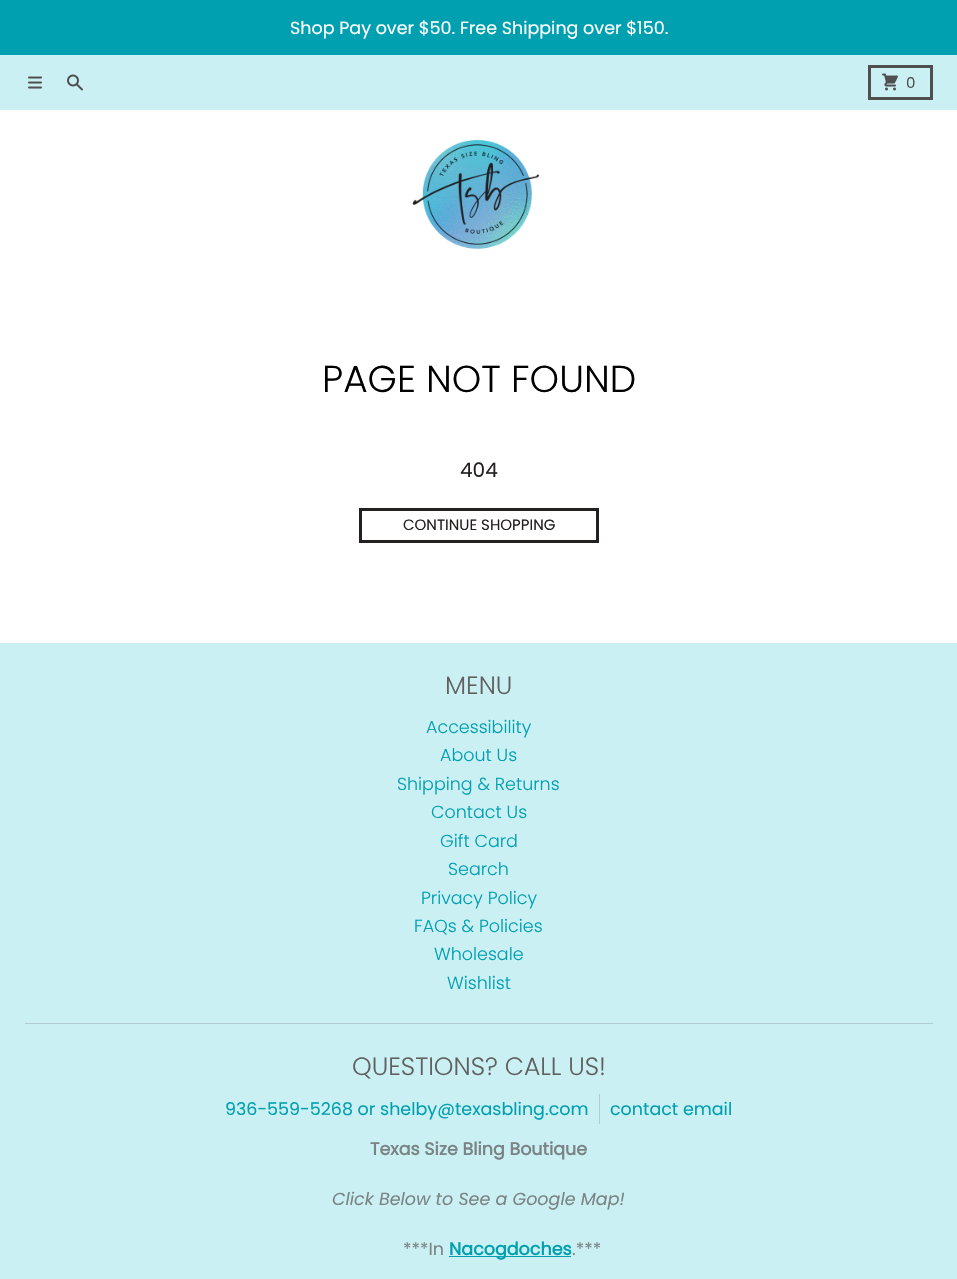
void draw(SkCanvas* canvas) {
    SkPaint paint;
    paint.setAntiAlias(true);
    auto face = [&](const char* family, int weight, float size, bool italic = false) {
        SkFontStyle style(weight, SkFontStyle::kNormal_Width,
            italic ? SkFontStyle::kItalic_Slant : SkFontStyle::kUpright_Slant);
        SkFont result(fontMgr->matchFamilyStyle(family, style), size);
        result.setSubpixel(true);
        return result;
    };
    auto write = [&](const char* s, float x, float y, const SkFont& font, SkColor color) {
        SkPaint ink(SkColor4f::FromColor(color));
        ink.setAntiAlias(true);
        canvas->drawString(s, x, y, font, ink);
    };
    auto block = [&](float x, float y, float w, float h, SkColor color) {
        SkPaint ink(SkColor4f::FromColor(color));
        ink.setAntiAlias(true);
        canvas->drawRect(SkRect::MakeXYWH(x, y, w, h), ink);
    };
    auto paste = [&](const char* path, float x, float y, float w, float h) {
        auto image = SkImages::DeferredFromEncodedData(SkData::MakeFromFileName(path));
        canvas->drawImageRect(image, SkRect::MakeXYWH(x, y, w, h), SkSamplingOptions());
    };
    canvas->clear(SkColorSetRGB(202, 240, 244));
    block(0, 0, 957, 55, SkColorSetRGB(1, 160, 176));
    auto kFont1 = face("Poppins", 400, 17.5f);
    write("Shop Pay over $50. Free Shipping over $150.", 290, 34, kFont1, SK_ColorWHITE);
    paste("pic1.png", 28, 76, 14, 13);
    paste("pic2.png", 67, 74, 16, 17);
    paint.setStyle(SkPaint::kStroke_Style);
    paint.setStrokeWidth(3);
    paint.setColor(SkColorSetRGB(79, 79, 79));
    canvas->drawRect(SkRect::MakeXYWH(869.5f, 66.5f, 62, 32), paint);
    paste("pic3.png", 882, 73, 16, 18);
    auto kFont2 = face("Poppins", 400, 15);
    write("0", 906, 88, kFont2, SkColorSetRGB(79, 79, 79));
    block(0, 110, 957, 533, SK_ColorWHITE);
    paste("pic4.png", 412, 140, 128, 109);
    auto kFont3 = face("Poppins", 300, 37.5f);
    write("PAGE NOT FOUND", 322, 392, kFont3, SK_ColorBLACK);
    auto kFont4 = face("Poppins", 400, 20);
    write("404", 460, 477, kFont4, SkColorSetRGB(35, 32, 32));
    paint.setColor(SkColorSetRGB(35, 32, 32));
    canvas->drawRect(SkRect::MakeXYWH(360.5f, 509.5f, 237, 32), paint);
    write("CONTINUE SHOPPING", 403, 530, kFont2, SkColorSetRGB(35, 32, 32));
    auto kFont5 = face("Poppins", 300, 25);
    write("MENU", 445, 694, kFont5, SkColorSetRGB(96, 96, 96));
    auto kFont6 = face("Poppins", 300, 17.5f);
    write("Accessibility", 426, 733, kFont6, SkColorSetRGB(1, 160, 176));
    write("About Us", 440, 761, kFont6, SkColorSetRGB(1, 160, 176));
    write("Shipping & Returns", 397, 790, kFont6, SkColorSetRGB(1, 160, 176));
    write("Contact Us", 431, 818, kFont6, SkColorSetRGB(1, 160, 176));
    write("Gift Card", 440, 847, kFont6, SkColorSetRGB(1, 160, 176));
    write("Search", 448, 875, kFont6, SkColorSetRGB(1, 160, 176));
    write("Privacy Policy", 421, 904, kFont6, SkColorSetRGB(1, 160, 176));
    write("FAQs & Policies", 414, 932, kFont6, SkColorSetRGB(1, 160, 176));
    write("Wholesale", 434, 960, kFont6, SkColorSetRGB(1, 160, 176));
    write("Wishlist", 447, 989, kFont6, SkColorSetRGB(1, 160, 176));
    block(25, 1023, 908, 1, SkColorSetRGB(176, 204, 207));
    write("QUESTIONS? CALL US!", 352, 1075, kFont5, SkColorSetRGB(96, 96, 96));
    write("936-559-5268 or shelby@texasbling.com", 225, 1115, kFont1, SkColorSetRGB(1, 160, 176));
    block(599, 1094, 1, 30, SkColorSetRGB(176, 204, 207));
    write("contact email", 610, 1115, kFont1, SkColorSetRGB(1, 160, 176));
    auto kFont7 = face("Poppins", 700, 17.5f);
    write("Texas Size Bling Boutique", 370, 1155, kFont7, SkColorSetRGB(123, 132, 133));
    auto kFont8 = face("Poppins", 400, 17.5f, true);
    write("Click Below to See a Google Map!", 332, 1205, kFont8, SkColorSetRGB(123, 132, 133));
    write("***In", 403, 1255, kFont1, SkColorSetRGB(123, 132, 133));
    block(449, 1256, 122, 1, SkColorSetRGB(1, 160, 176));
    write("Nacogdoches", 449, 1255, kFont7, SkColorSetRGB(1, 160, 176));
    write(".***", 572, 1255, kFont1, SkColorSetRGB(123, 132, 133));
}
